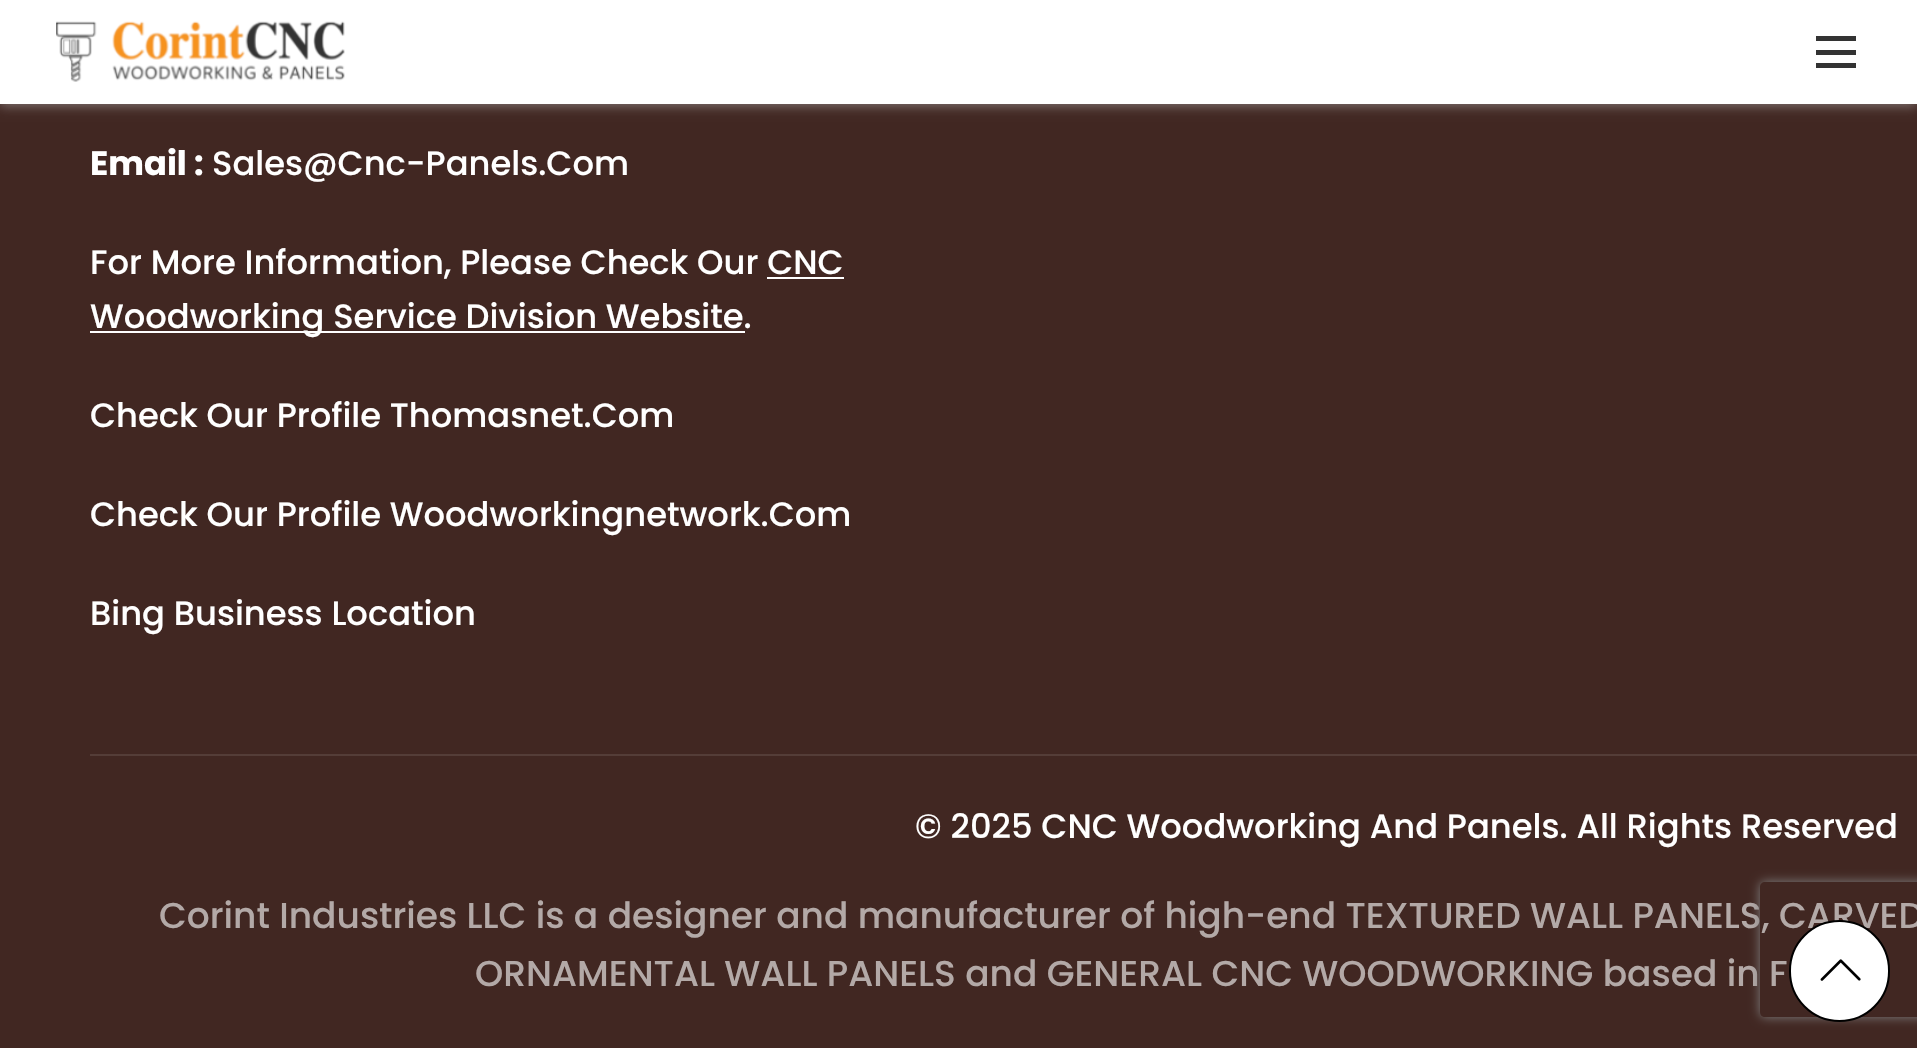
void draw(SkCanvas* canvas) {
    SkPaint paint;
    paint.setAntiAlias(true);
    auto face = [&](const char* family, int weight, float size, bool italic = false) {
        SkFontStyle style(weight, SkFontStyle::kNormal_Width,
            italic ? SkFontStyle::kItalic_Slant : SkFontStyle::kUpright_Slant);
        SkFont result(fontMgr->matchFamilyStyle(family, style), size);
        result.setSubpixel(true);
        return result;
    };
    auto write = [&](const char* s, float x, float y, const SkFont& font, SkColor color) {
        SkPaint ink(SkColor4f::FromColor(color));
        ink.setAntiAlias(true);
        canvas->drawString(s, x, y, font, ink);
    };
    auto block = [&](float x, float y, float w, float h, SkColor color) {
        SkPaint ink(SkColor4f::FromColor(color));
        ink.setAntiAlias(true);
        canvas->drawRect(SkRect::MakeXYWH(x, y, w, h), ink);
    };
    auto paste = [&](const char* path, float x, float y, float w, float h) {
        auto image = SkImages::DeferredFromEncodedData(SkData::MakeFromFileName(path));
        canvas->drawImageRect(image, SkRect::MakeXYWH(x, y, w, h), SkSamplingOptions());
    };
    canvas->clear(SkColorSetRGB(65, 39, 34));
    paint.setColor(SkColorSetARGB(128, 190, 190, 190));
    paint.setMaskFilter(SkMaskFilter::MakeBlur(kNormal_SkBlurStyle, 5.5f));
    canvas->drawRect(SkRect::MakeXYWH(0, 2, 1917, 104), paint);
    paint.setMaskFilter(nullptr);
    block(0, 0, 1917, 104, SK_ColorWHITE);
    paste("pic1.png", 56, 21, 289, 61);
    block(1816, 50, 40, 5, SkColorSetRGB(51, 51, 51));
    block(1816, 36, 40, 5, SkColorSetRGB(51, 51, 51));
    block(1816, 63, 40, 5, SkColorSetRGB(51, 51, 51));
    auto kFont1 = face("Poppins", 700, 33.75f);
    write("Email :", 90, 175, kFont1, SK_ColorWHITE);
    auto kFont2 = face("Poppins", 500, 33.75f);
    write("Sales@Cnc-Panels.Com", 212, 175, kFont2, SK_ColorWHITE);
    write("For More Information, Please Check Our CNC", 90, 274, kFont2, SK_ColorWHITE);
    block(90, 331, 655, 2, SK_ColorWHITE);
    write("Woodworking Service Division Website.", 90, 328, kFont2, SK_ColorWHITE);
    block(767, 277, 77, 2, SK_ColorWHITE);
    write("Check Our Profile Thomasnet.Com", 90, 427, kFont2, SK_ColorWHITE);
    write("Check Our Profile Woodworkingnetwork.Com", 90, 526, kFont2, SK_ColorWHITE);
    write("Bing Business Location", 90, 625, kFont2, SK_ColorWHITE);
    block(90, 754, 1827, 2, SkColorSetRGB(84, 61, 56));
    write("© 2025 CNC Woodworking And Panels. All Rights Reserved", 915, 838, kFont2, SK_ColorWHITE);
    auto kFont3 = face("Poppins", 500, 36);
    write("Corint Industries LLC is a designer and manufacturer of high-end TEXTURED WALL PANELS, CARVED", 159, 928, kFont3, SkColorSetRGB(179, 169, 167));
    write("ORNAMENTAL WALL PANELS and GENERAL CNC WOODWORKING based in F", 475, 986, kFont3, SkColorSetRGB(179, 169, 167));
    canvas->save();
    canvas->clipPath(SkPathBuilder(SkPathFillType::kEvenOdd).moveTo(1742, 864).lineTo(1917, 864).lineTo(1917, 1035).lineTo(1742, 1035).close().moveTo(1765, 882).lineTo(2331, 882).cubicTo(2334, 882, 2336, 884, 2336, 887).lineTo(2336, 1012).cubicTo(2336, 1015, 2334, 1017, 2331, 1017).lineTo(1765, 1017).cubicTo(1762, 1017, 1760, 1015, 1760, 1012).lineTo(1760, 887).cubicTo(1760, 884, 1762, 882, 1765, 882).close().detach(), true);
    paint.setColor(SkColorSetRGB(128, 128, 128));
    paint.setMaskFilter(SkMaskFilter::MakeBlur(kNormal_SkBlurStyle, 5.5f));
    canvas->drawRoundRect(SkRect::MakeXYWH(1760, 882, 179, 135), 5, 5, paint);
    paint.setMaskFilter(nullptr);
    canvas->restore();
    paint.setColor(SK_ColorWHITE);
    canvas->drawRoundRect(SkRect::MakeXYWH(1790, 921, 99, 100), 49.5f, 49.5f, paint);
    paint.setStyle(SkPaint::kStroke_Style);
    paint.setStrokeWidth(2);
    paint.setColor(SK_ColorBLACK);
    canvas->drawRoundRect(SkRect::MakeXYWH(1790, 921, 99, 100), 49.5f, 49.5f, paint);
    paste("pic2.png", 1820, 959, 41, 22);
}
